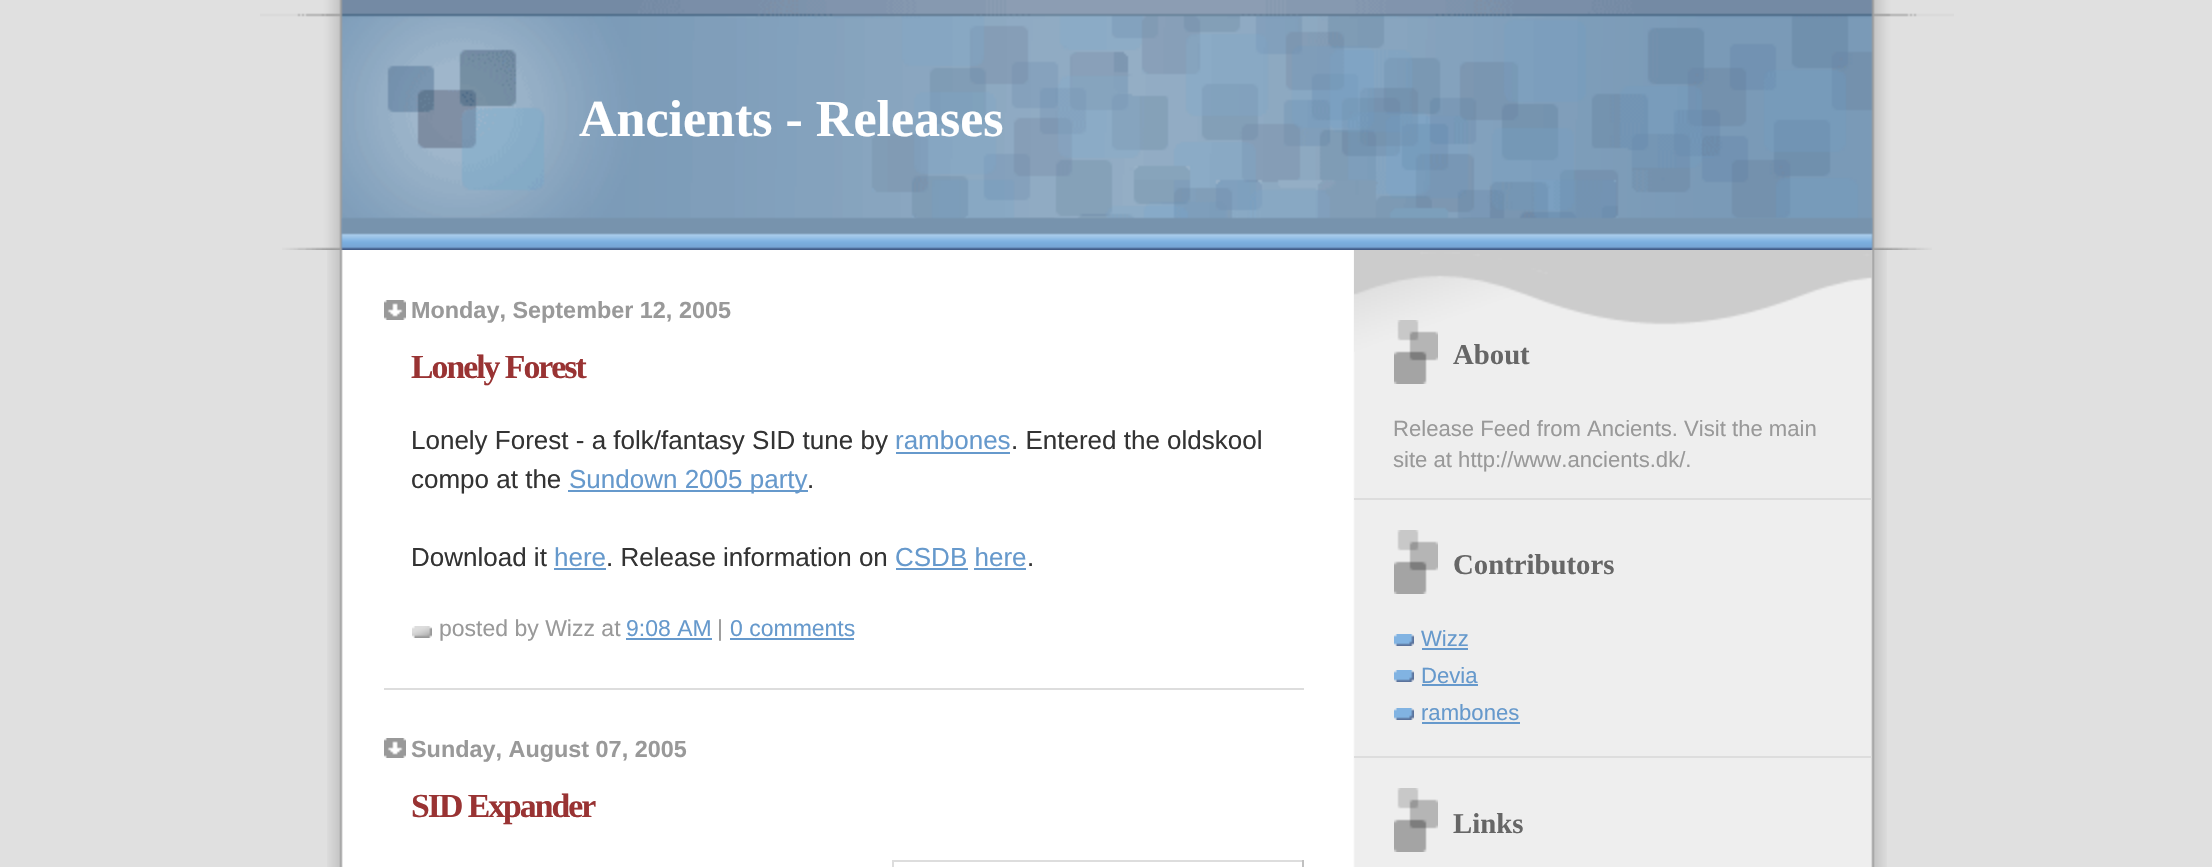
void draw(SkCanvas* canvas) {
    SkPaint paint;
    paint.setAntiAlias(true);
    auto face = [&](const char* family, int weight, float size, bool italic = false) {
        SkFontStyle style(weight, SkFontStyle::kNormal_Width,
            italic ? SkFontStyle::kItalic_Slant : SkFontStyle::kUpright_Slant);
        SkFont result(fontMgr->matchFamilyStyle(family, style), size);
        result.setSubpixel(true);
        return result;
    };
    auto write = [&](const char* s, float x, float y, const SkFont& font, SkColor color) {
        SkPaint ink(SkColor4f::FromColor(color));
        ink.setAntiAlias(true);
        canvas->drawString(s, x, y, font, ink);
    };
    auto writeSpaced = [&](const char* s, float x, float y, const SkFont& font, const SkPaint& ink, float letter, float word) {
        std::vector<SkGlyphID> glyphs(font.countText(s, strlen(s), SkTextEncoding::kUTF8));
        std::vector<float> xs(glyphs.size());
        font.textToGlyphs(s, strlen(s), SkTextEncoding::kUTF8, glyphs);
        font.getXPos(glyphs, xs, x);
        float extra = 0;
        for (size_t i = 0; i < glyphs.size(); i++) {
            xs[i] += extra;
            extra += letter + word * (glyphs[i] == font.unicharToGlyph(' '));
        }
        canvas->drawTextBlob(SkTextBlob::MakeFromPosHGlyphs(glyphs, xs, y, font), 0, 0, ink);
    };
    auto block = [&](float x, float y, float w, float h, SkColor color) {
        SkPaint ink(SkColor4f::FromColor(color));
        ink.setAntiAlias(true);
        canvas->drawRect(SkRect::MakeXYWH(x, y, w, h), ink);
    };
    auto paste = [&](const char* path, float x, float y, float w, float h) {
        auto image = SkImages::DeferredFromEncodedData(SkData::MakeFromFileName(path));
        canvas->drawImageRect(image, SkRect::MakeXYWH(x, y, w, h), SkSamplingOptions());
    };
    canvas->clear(SkColorSetRGB(224, 224, 224));
    paste("pic1.png", 327, 250, 1560, 617);
    paste("pic2.png", 260, 0, 1694, 249);
    paste("pic3.png", 282, 217, 1650, 33);
    auto kFont1 = face("Liberation Serif", 700, 52);
    write("Ancients - Releases", 579, 136, kFont1, SK_ColorWHITE);
    paste("pic4.png", 384, 300, 22, 20);
    auto kFont2 = face("Liberation Sans", 700, 23.4f);
    write("Monday, September 12, 2005", 411, 318, kFont2, SkColorSetRGB(153, 153, 153));
    block(384, 688, 920, 2, SkColorSetRGB(221, 221, 221));
    auto kFont3 = face("Liberation Serif", 700, 33.75f);
    paint.setColor(SkColorSetRGB(153, 51, 51));
    writeSpaced("Lonely Forest", 411, 378, kFont3, paint, -2, 0);
    auto kFont4 = face("Liberation Sans", 400, 26);
    write("Lonely Forest - a folk/fantasy SID tune by", 411, 449, kFont4, SkColorSetRGB(51, 51, 51));
    write("rambones", 895, 449, kFont4, SkColorSetRGB(102, 153, 204));
    block(896, 452, 114, 2, SkColorSetRGB(102, 153, 204));
    write(". Entered the oldskool", 1011, 449, kFont4, SkColorSetRGB(51, 51, 51));
    write("compo at the", 411, 488, kFont4, SkColorSetRGB(51, 51, 51));
    block(568, 490, 240, 2, SkColorSetRGB(102, 153, 204));
    write("Sundown 2005 party", 569, 488, kFont4, SkColorSetRGB(102, 153, 204));
    write(".", 807, 488, kFont4, SkColorSetRGB(51, 51, 51));
    write("Download it", 411, 566, kFont4, SkColorSetRGB(51, 51, 51));
    write("here", 554, 566, kFont4, SkColorSetRGB(102, 153, 204));
    block(554, 568, 52, 2, SkColorSetRGB(102, 153, 204));
    write(". Release information on", 606, 566, kFont4, SkColorSetRGB(51, 51, 51));
    write("CSDB here", 895, 566, kFont4, SkColorSetRGB(102, 153, 204));
    block(896, 568, 72, 2, SkColorSetRGB(102, 153, 204));
    write(".", 1027, 566, kFont4, SkColorSetRGB(51, 51, 51));
    block(974, 568, 52, 2, SkColorSetRGB(102, 153, 204));
    paste("pic5.png", 412, 626, 20, 12);
    auto kFont5 = face("Liberation Sans", 400, 23);
    write("posted by Wizz at", 439, 636, kFont5, SkColorSetRGB(153, 153, 153));
    write("9:08 AM", 626, 636, kFont5, SkColorSetRGB(102, 153, 204));
    block(626, 638, 86, 2, SkColorSetRGB(102, 153, 204));
    write("|", 717, 636, kFont5, SkColorSetRGB(153, 153, 153));
    write("0 comments", 730, 636, kFont5, SkColorSetRGB(102, 153, 204));
    block(730, 638, 124, 2, SkColorSetRGB(102, 153, 204));
    paste("pic4.png", 384, 738, 22, 20);
    write("Sunday, August 07, 2005", 411, 757, kFont2, SkColorSetRGB(153, 153, 153));
    writeSpaced("SID Expander", 411, 817, kFont3, paint, -2, 0);
    block(892, 860, 412, 2, SkColorSetRGB(221, 221, 221));
    block(1302, 860, 2, 7, SkColorSetRGB(192, 192, 192));
    block(892, 860, 2, 7, SkColorSetRGB(221, 221, 221));
    paste("pic6.png", 1354, 250, 518, 102);
    paste("pic7.png", 1394, 320, 44, 64);
    auto kFont6 = face("Liberation Serif", 700, 28.75f);
    write("About", 1453, 364, kFont6, SkColorSetRGB(102, 102, 102));
    block(1354, 498, 518, 2, SkColorSetRGB(221, 221, 221));
    auto kFont7 = face("Liberation Sans", 400, 22.1f);
    write("Release Feed from Ancients. Visit the main", 1393, 436, kFont7, SkColorSetRGB(153, 153, 153));
    write("site at http://www.ancients.dk/.", 1393, 467, kFont7, SkColorSetRGB(153, 153, 153));
    paste("pic8.png", 1394, 530, 44, 64);
    write("Contributors", 1453, 574, kFont6, SkColorSetRGB(102, 102, 102));
    block(1354, 756, 518, 2, SkColorSetRGB(221, 221, 221));
    paste("pic9.png", 1394, 634, 20, 12);
    write("Wizz", 1421, 646, kFont7, SkColorSetRGB(102, 153, 204));
    block(1422, 648, 46, 2, SkColorSetRGB(102, 153, 204));
    paste("pic9.png", 1394, 670, 20, 12);
    write("Devia", 1421, 683, kFont7, SkColorSetRGB(102, 153, 204));
    block(1422, 684, 56, 2, SkColorSetRGB(102, 153, 204));
    paste("pic9.png", 1394, 708, 20, 12);
    write("rambones", 1421, 720, kFont7, SkColorSetRGB(102, 153, 204));
    block(1422, 722, 98, 2, SkColorSetRGB(102, 153, 204));
    paste("pic8.png", 1394, 788, 44, 64);
    write("Links", 1453, 833, kFont6, SkColorSetRGB(102, 102, 102));
}
